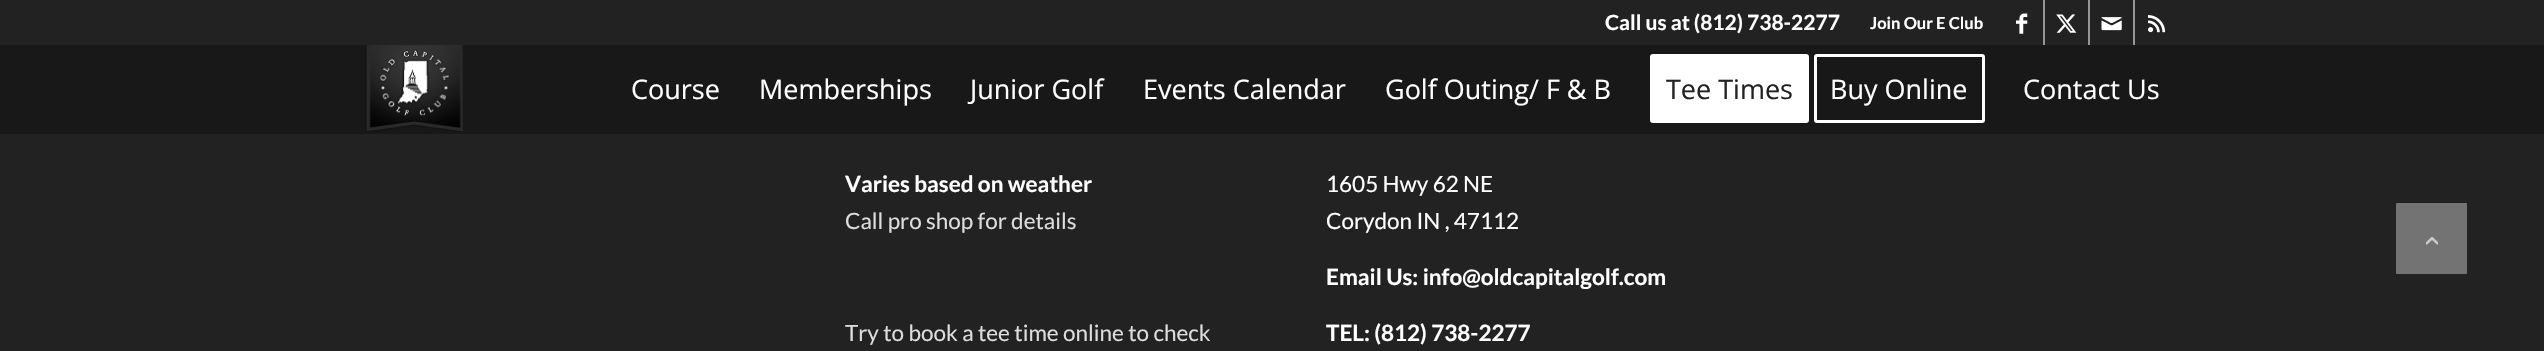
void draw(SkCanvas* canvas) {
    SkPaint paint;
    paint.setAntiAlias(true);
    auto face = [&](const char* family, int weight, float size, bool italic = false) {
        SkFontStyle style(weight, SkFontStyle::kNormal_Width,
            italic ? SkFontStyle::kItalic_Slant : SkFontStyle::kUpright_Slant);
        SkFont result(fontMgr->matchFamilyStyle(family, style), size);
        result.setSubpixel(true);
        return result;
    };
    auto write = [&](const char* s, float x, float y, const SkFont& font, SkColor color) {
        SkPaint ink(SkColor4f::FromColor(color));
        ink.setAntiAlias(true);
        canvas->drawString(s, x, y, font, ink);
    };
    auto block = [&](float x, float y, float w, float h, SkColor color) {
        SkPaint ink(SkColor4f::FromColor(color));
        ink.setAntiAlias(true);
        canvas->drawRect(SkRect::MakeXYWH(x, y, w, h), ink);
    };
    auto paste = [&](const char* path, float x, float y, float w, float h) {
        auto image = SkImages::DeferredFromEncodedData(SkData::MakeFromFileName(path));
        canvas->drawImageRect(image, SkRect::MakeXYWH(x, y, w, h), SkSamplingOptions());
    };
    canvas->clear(SkColorSetRGB(34, 34, 34));
    auto kFont1 = face("Lato", 700, 21);
    write("Call us at (812) 738-2277", 1605, 30, kFont1, SK_ColorWHITE);
    auto kFont2 = face("Lato", 700, 16.5f);
    write("Join Our E Club", 1870, 29, kFont2, SK_ColorWHITE);
    block(2043, 0, 2, 45, SkColorSetRGB(150, 150, 150));
    paste("pic1.png", 2016, 13, 12, 21);
    block(2088, 0, 2, 45, SkColorSetRGB(150, 150, 150));
    paste("pic2.png", 2056, 14, 21, 19);
    block(2133, 0, 2, 45, SkColorSetRGB(150, 150, 150));
    paste("pic3.png", 2101, 17, 21, 14);
    paste("pic4.png", 2148, 15, 18, 18);
    block(0, 45, 2544, 89, SkColorSetRGB(24, 24, 24));
    paste("pic5.png", 365, 45, 98, 87);
    auto kFont3 = face("Open Sans", 400, 27);
    write("Course", 631, 99, kFont3, SK_ColorWHITE);
    write("Memberships", 759, 99, kFont3, SK_ColorWHITE);
    write("Junior Golf", 970, 99, kFont3, SK_ColorWHITE);
    write("Events Calendar", 1143, 99, kFont3, SK_ColorWHITE);
    write("Golf Outing/ F & B", 1385, 99, kFont3, SK_ColorWHITE);
    paint.setColor(SK_ColorWHITE);
    canvas->drawRoundRect(SkRect::MakeXYWH(1651.5f, 55.5f, 156, 66), 1.5f, 1.5f, paint);
    paint.setStyle(SkPaint::kStroke_Style);
    paint.setStrokeWidth(3);
    canvas->drawRoundRect(SkRect::MakeXYWH(1651.5f, 55.5f, 156, 66), 1.5f, 1.5f, paint);
    write("Tee Times", 1666, 99, kFont3, SkColorSetRGB(34, 34, 34));
    canvas->drawRoundRect(SkRect::MakeXYWH(1815.5f, 55.5f, 168, 66), 1.5f, 1.5f, paint);
    write("Buy Online", 1830, 99, kFont3, SK_ColorWHITE);
    write("Contact Us", 2023, 99, kFont3, SK_ColorWHITE);
    auto kFont4 = face("Lato", 700, 22.5f);
    write("Varies based on weather", 845, 192, kFont4, SK_ColorWHITE);
    auto kFont5 = face("Lato", 400, 22.5f);
    write("Call pro shop for details", 845, 229, kFont5, SkColorSetRGB(221, 221, 221));
    write("Try to book a tee time online to check", 845, 341, kFont5, SkColorSetRGB(221, 221, 221));
    write("1605 Hwy 62 NE", 1326, 192, kFont5, SK_ColorWHITE);
    write("Corydon IN , 47112", 1326, 229, kFont5, SK_ColorWHITE);
    write("Email Us: info@oldcapitalgolf.com", 1326, 285, kFont4, SK_ColorWHITE);
    write("TEL: (812) 738-2277", 1326, 341, kFont4, SK_ColorWHITE);
    paint.setStyle(SkPaint::kFill_Style);
    paint.setColor(SkColorSetRGB(115, 115, 115));
    canvas->drawRoundRect(SkRect::MakeXYWH(2395, 202, 73, 73), 2, 2, paint);
    paint.setStyle(SkPaint::kStroke_Style);
    paint.setStrokeWidth(2);
    paint.setColor(SkColorSetRGB(34, 34, 34));
    canvas->drawRoundRect(SkRect::MakeXYWH(2395, 202, 73, 73), 2, 2, paint);
    paste("pic6.png", 2426, 237, 12, 8);
}
